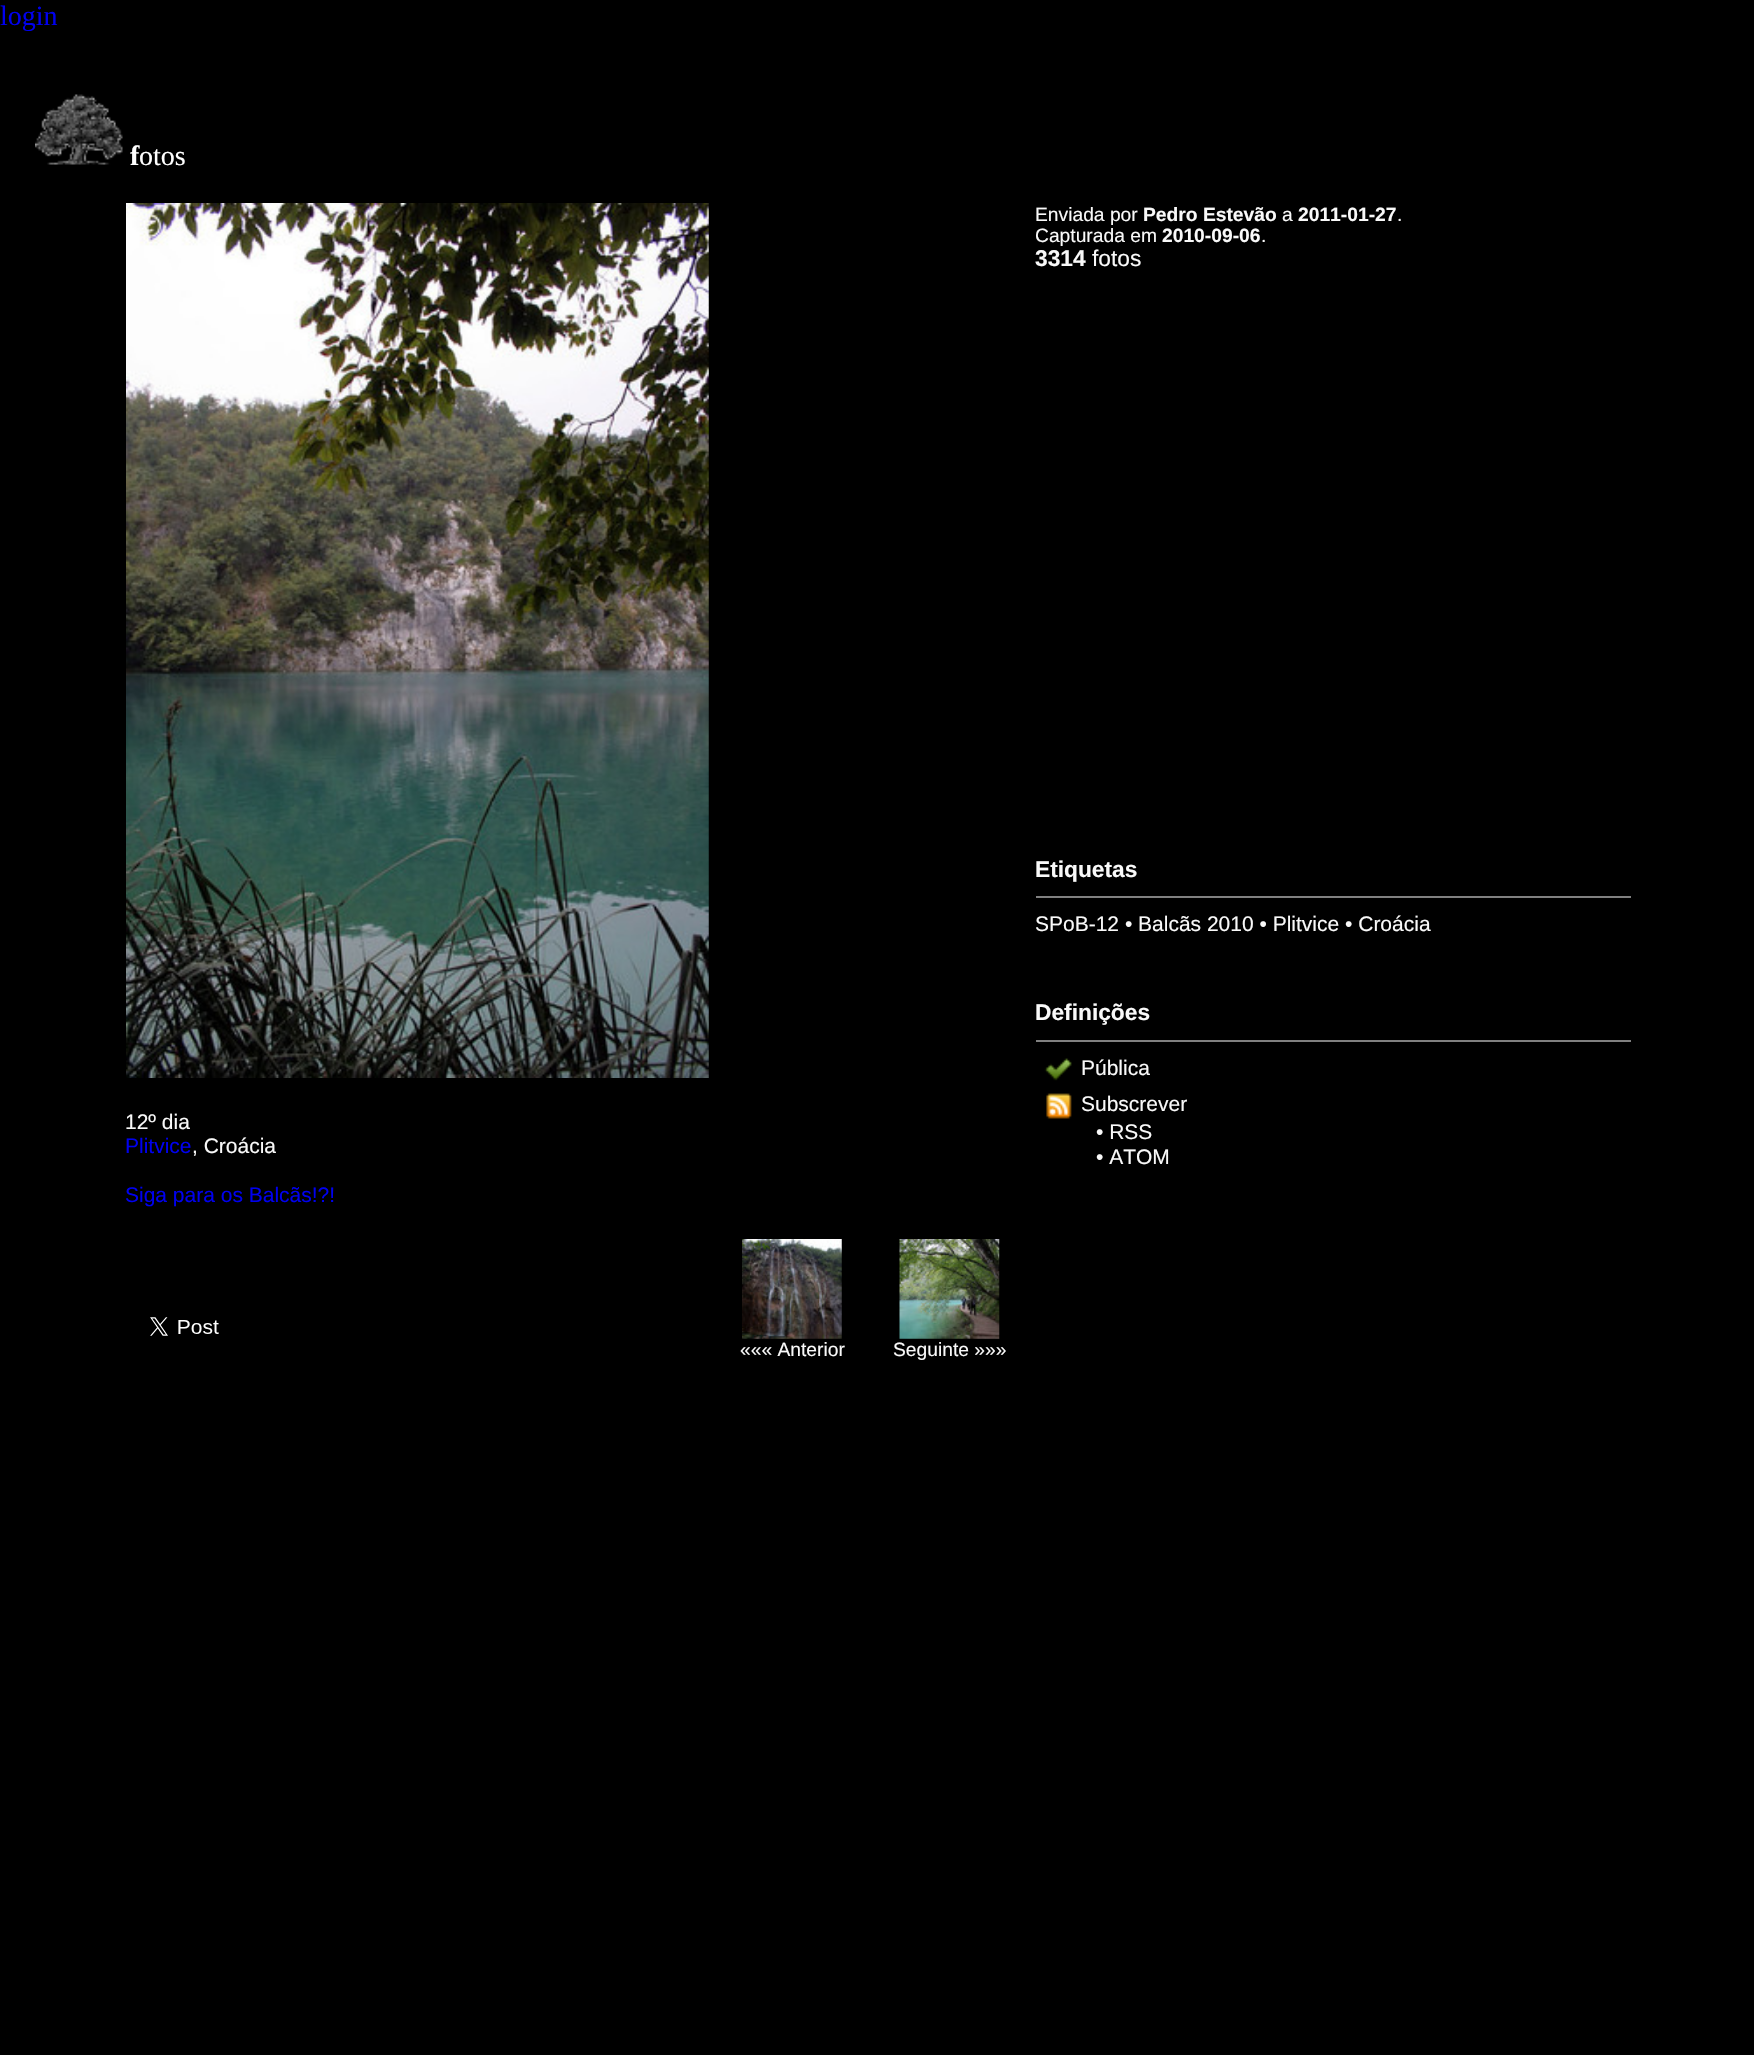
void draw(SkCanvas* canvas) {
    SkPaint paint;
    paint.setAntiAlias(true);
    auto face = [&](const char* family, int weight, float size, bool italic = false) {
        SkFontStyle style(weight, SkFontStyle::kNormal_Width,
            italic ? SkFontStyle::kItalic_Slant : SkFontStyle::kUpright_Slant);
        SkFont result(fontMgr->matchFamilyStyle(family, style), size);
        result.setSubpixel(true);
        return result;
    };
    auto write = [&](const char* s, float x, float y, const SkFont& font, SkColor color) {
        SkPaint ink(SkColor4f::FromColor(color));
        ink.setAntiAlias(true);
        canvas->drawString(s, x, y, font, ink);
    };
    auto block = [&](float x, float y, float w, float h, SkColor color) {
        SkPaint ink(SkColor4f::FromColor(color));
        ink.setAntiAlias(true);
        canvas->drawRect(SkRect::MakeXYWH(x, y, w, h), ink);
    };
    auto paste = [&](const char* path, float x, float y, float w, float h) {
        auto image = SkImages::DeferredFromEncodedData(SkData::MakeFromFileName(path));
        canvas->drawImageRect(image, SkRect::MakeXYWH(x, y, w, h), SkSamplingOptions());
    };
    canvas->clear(SK_ColorBLACK);
    auto kFont1 = face("Liberation Serif", 400, 28);
    write("login", 0, 25, kFont1, SkColorSetRGB(0, 0, 238));
    paste("pic1.png", 35, 94, 88, 71);
    auto kFont2 = face("Liberation Serif", 700, 28);
    write("f", 130, 165, kFont2, SK_ColorWHITE);
    write("otos", 139, 165, kFont1, SK_ColorWHITE);
    auto kFont3 = face("Liberation Sans", 400, 19.25f);
    write("Enviada por", 1035, 221, kFont3, SkColorSetRGB(249, 249, 249));
    auto kFont4 = face("Liberation Sans", 700, 19.25f);
    write("Pedro Estevão", 1143, 221, kFont4, SkColorSetRGB(249, 249, 249));
    write("a", 1282, 221, kFont3, SkColorSetRGB(249, 249, 249));
    write("2011-01-27", 1298, 221, kFont4, SkColorSetRGB(249, 249, 249));
    write(".", 1397, 221, kFont3, SkColorSetRGB(249, 249, 249));
    write("Capturada em", 1035, 242, kFont3, SkColorSetRGB(249, 249, 249));
    write("2010-09-06", 1162, 242, kFont4, SkColorSetRGB(249, 249, 249));
    write(".", 1261, 242, kFont3, SkColorSetRGB(249, 249, 249));
    auto kFont5 = face("Liberation Sans", 700, 22.75f);
    write("3314", 1035, 266, kFont5, SkColorSetRGB(249, 249, 249));
    auto kFont6 = face("Liberation Sans", 400, 22.75f);
    write("fotos", 1092, 266, kFont6, SkColorSetRGB(249, 249, 249));
    write("Etiquetas", 1035, 877, kFont5, SkColorSetRGB(249, 249, 249));
    block(1036, 896, 595, 2, SkColorSetRGB(128, 128, 128));
    auto kFont7 = face("Liberation Sans", 400, 21);
    write("SPoB-12 • Balcãs 2010 • Plitvice • Croácia", 1035, 931, kFont7, SkColorSetRGB(249, 249, 249));
    write("Definições", 1035, 1020, kFont5, SkColorSetRGB(249, 249, 249));
    block(1036, 1040, 595, 2, SkColorSetRGB(128, 128, 128));
    paste("pic2.png", 1044, 1058, 28, 23);
    write("Pública", 1081, 1075, kFont7, SkColorSetRGB(249, 249, 249));
    paste("pic3.png", 1046, 1093, 26, 26);
    write("Subscrever", 1081, 1111, kFont7, SkColorSetRGB(249, 249, 249));
    write("• RSS", 1096, 1139, kFont7, SkColorSetRGB(249, 249, 249));
    write("• ATOM", 1096, 1164, kFont7, SkColorSetRGB(249, 249, 249));
    paste("pic4.png", 126, 203, 583, 875);
    write("12º dia", 125, 1129, kFont7, SkColorSetRGB(249, 249, 249));
    write("Plitvice", 125, 1153, kFont7, SkColorSetRGB(0, 0, 238));
    write(", Croácia", 192, 1153, kFont7, SkColorSetRGB(249, 249, 249));
    write("Siga para os Balcãs!?!", 125, 1202, kFont7, SkColorSetRGB(0, 0, 238));
    paste("pic5.png", 150, 1317, 69, 19);
    paste("pic6.png", 742, 1239, 100, 100);
    write("««« Anterior", 740, 1356, kFont3, SkColorSetRGB(249, 249, 249));
    paste("pic7.png", 899, 1239, 101, 100);
    write("Seguinte »»»", 893, 1356, kFont3, SkColorSetRGB(249, 249, 249));
}
